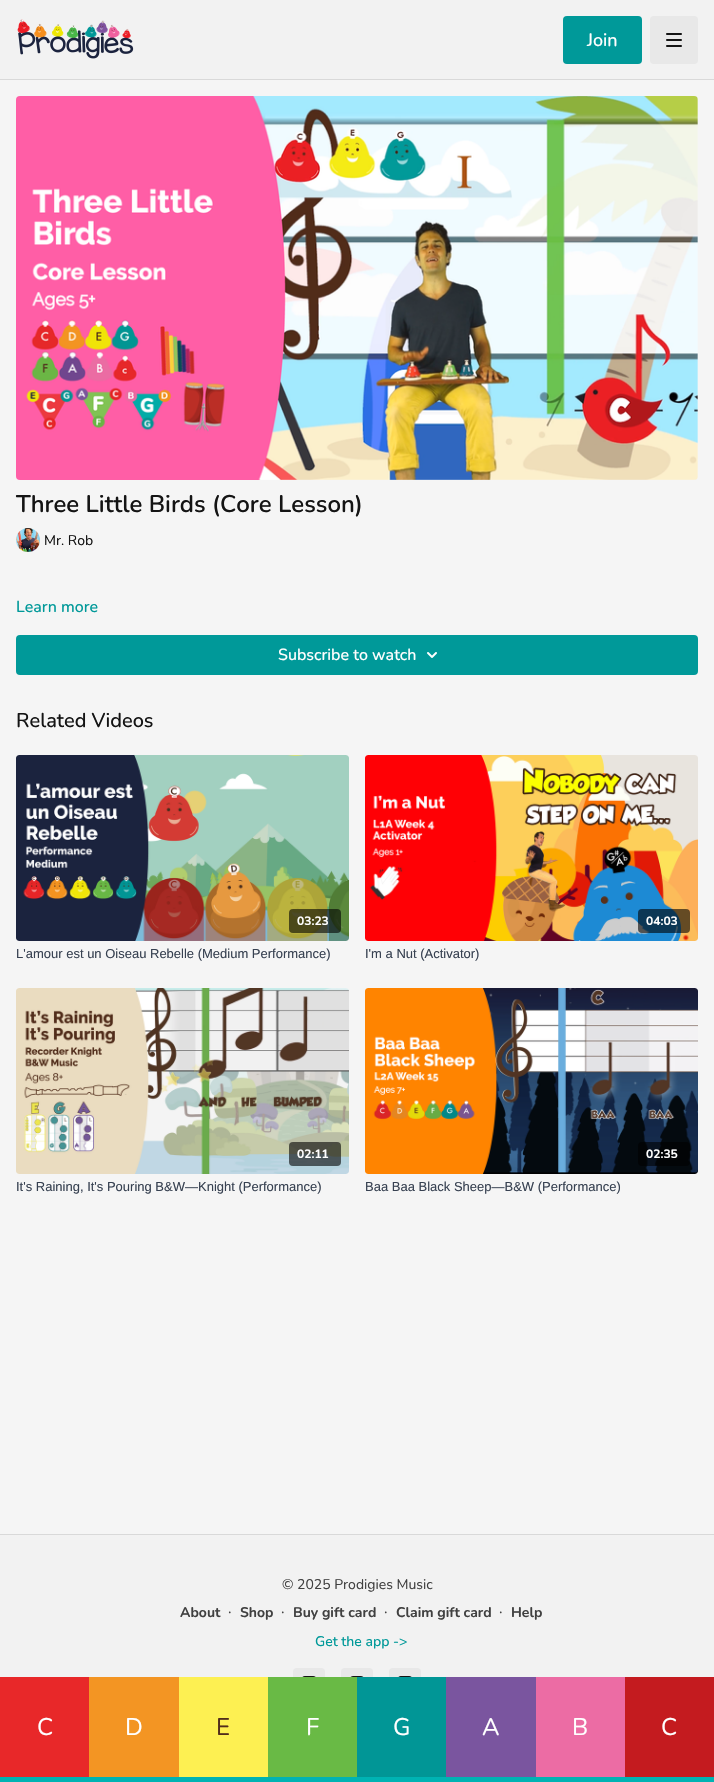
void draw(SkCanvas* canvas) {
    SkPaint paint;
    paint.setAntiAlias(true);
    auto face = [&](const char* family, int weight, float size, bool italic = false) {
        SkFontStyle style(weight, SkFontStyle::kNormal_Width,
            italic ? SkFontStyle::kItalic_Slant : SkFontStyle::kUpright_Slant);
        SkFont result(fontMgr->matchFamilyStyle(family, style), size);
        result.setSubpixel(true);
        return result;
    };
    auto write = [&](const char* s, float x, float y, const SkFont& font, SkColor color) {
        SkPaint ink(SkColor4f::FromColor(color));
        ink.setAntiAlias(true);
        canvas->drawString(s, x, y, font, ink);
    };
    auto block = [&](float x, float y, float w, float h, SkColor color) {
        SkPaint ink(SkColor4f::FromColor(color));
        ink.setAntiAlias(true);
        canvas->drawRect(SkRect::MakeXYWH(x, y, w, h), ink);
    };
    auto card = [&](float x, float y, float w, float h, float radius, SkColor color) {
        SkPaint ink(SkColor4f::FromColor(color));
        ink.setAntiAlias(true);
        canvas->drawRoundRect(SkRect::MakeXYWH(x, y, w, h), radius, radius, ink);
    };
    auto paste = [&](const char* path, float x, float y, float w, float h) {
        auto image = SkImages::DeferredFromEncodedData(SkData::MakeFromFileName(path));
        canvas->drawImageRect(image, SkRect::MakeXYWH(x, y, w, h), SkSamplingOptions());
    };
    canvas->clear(SkColorSetRGB(245, 245, 245));
    block(0, 0, 714, 79, SkColorSetRGB(242, 242, 242));
    block(0, 79, 714, 1, SkColorSetRGB(217, 217, 217));
    paste("pic1.png", 17, 19, 117, 40);
    card(563, 16, 79, 48, 4, SkColorSetRGB(0, 153, 153));
    auto kFont1 = face("Nunito", 500, 18);
    write("Join", 587, 46, kFont1, SK_ColorWHITE);
    card(650, 16, 48, 48, 4, SkColorSetRGB(232, 232, 232));
    paste("pic2.png", 666, 33, 16, 14);
    paste("pic3.png", 16, 96, 682, 384);
    auto kFont2 = face("Nunito", 600, 24);
    write("Three Little Birds (Core Lesson)", 16, 512, kFont2, SkColorSetRGB(20, 20, 20));
    paste("pic4.png", 16, 528, 24, 24);
    auto kFont3 = face("Nunito", 400, 14);
    write("Mr. Rob", 44, 545, kFont3, SkColorSetRGB(20, 20, 20));
    auto kFont4 = face("Nunito", 500, 16);
    write("Learn more", 16, 612, kFont4, SkColorSetRGB(0, 153, 153));
    card(16, 635, 682, 40, 4, SkColorSetRGB(0, 153, 153));
    write("Subscribe to watch", 278, 660, kFont4, SK_ColorWHITE);
    paste("pic5.png", 427, 652, 10, 6);
    auto kFont5 = face("Nunito", 500, 20);
    write("Related Videos", 16, 727, kFont5, SkColorSetRGB(20, 20, 20));
    paste("pic6.png", 16, 755, 333, 186);
    card(289, 909, 52, 24, 4, SkColorSetARGB(153, 0, 0, 0));
    auto kFont6 = face("Nunito", 700, 12);
    write("03:23", 297, 925, kFont6, SK_ColorWHITE);
    auto kFont7 = face("Liberation Sans", 400, 13);
    write("L'amour est un Oiseau Rebelle (Medium Performance)", 16, 958, kFont7, SkColorSetRGB(55, 65, 81));
    paste("pic7.png", 365, 755, 333, 186);
    card(638, 909, 52, 24, 4, SkColorSetARGB(153, 0, 0, 0));
    write("04:03", 646, 925, kFont6, SK_ColorWHITE);
    write("I'm a Nut (Activator)", 365, 958, kFont7, SkColorSetRGB(55, 65, 81));
    paste("pic8.png", 16, 988, 333, 186);
    card(289, 1142, 52, 24, 4, SkColorSetARGB(153, 0, 0, 0));
    write("02:11", 297, 1158, kFont6, SK_ColorWHITE);
    write("It's Raining, It's Pouring B&W—Knight (Performance)", 16, 1191, kFont7, SkColorSetRGB(55, 65, 81));
    paste("pic9.png", 365, 988, 333, 186);
    card(638, 1142, 52, 24, 4, SkColorSetARGB(153, 0, 0, 0));
    write("02:35", 646, 1158, kFont6, SK_ColorWHITE);
    write("Baa Baa Black Sheep—B&W (Performance)", 365, 1191, kFont7, SkColorSetRGB(55, 65, 81));
    block(0, 1535, 714, 142, SkColorSetRGB(242, 242, 242));
    block(0, 1534, 714, 1, SkColorSetRGB(217, 217, 217));
    write("© 2025 Prodigies Music", 282, 1589, kFont3, SkColorSetRGB(64, 64, 64));
    auto kFont8 = face("Nunito", 700, 14);
    write("About", 180, 1617, kFont8, SkColorSetRGB(64, 64, 64));
    auto kFont9 = face("Liberation Serif", 400, 14);
    write("∙", 228, 1617, kFont9, SkColorSetRGB(64, 64, 64));
    write("Shop", 240, 1617, kFont8, SkColorSetRGB(64, 64, 64));
    write("∙", 281, 1617, kFont9, SkColorSetRGB(64, 64, 64));
    write("Buy gift card", 293, 1617, kFont8, SkColorSetRGB(64, 64, 64));
    write("∙", 384, 1617, kFont9, SkColorSetRGB(64, 64, 64));
    write("Claim gift card", 396, 1617, kFont8, SkColorSetRGB(64, 64, 64));
    write("∙", 499, 1617, kFont9, SkColorSetRGB(64, 64, 64));
    write("Help", 511, 1617, kFont8, SkColorSetRGB(64, 64, 64));
    auto kFont10 = face("Nunito", 500, 14);
    write("Get the app ->", 315, 1646, kFont10, SkColorSetRGB(0, 153, 153));
    card(293, 1668, 32, 32, 4, SkColorSetRGB(232, 232, 232));
    paste("pic10.png", 302, 1676, 14, 1);
    card(341, 1668, 32, 32, 4, SkColorSetRGB(232, 232, 232));
    paste("pic11.png", 350, 1676, 14, 1);
    card(389, 1668, 32, 32, 4, SkColorSetRGB(232, 232, 232));
    paste("pic10.png", 398, 1676, 14, 1);
    block(0, 1677, 89, 100, SkColorSetRGB(232, 40, 41));
    block(0, 1777, 714, 5, SkColorSetRGB(0, 179, 179));
    auto kFont11 = face("Nunito", 400, 24);
    write("C", 37, 1735, kFont11, SK_ColorWHITE);
    block(89, 1677, 90, 100, SkColorSetRGB(243, 149, 35));
    write("D", 125, 1735, kFont11, SK_ColorWHITE);
    block(179, 1677, 89, 100, SkColorSetRGB(253, 240, 82));
    write("E", 216, 1735, kFont11, SkColorSetRGB(81, 45, 27));
    block(268, 1677, 89, 100, SkColorSetRGB(105, 186, 69));
    write("F", 306, 1735, kFont11, SK_ColorWHITE);
    block(357, 1677, 89, 100, SkColorSetRGB(1, 150, 150));
    write("G", 393, 1735, kFont11, SK_ColorWHITE);
    block(446, 1677, 90, 100, SkColorSetRGB(122, 85, 159));
    write("A", 482, 1735, kFont11, SK_ColorWHITE);
    block(536, 1677, 89, 100, SkColorSetRGB(236, 108, 164));
    write("B", 572, 1735, kFont11, SK_ColorWHITE);
    block(625, 1677, 89, 100, SkColorSetRGB(196, 27, 31));
    write("C", 661, 1735, kFont11, SK_ColorWHITE);
}
